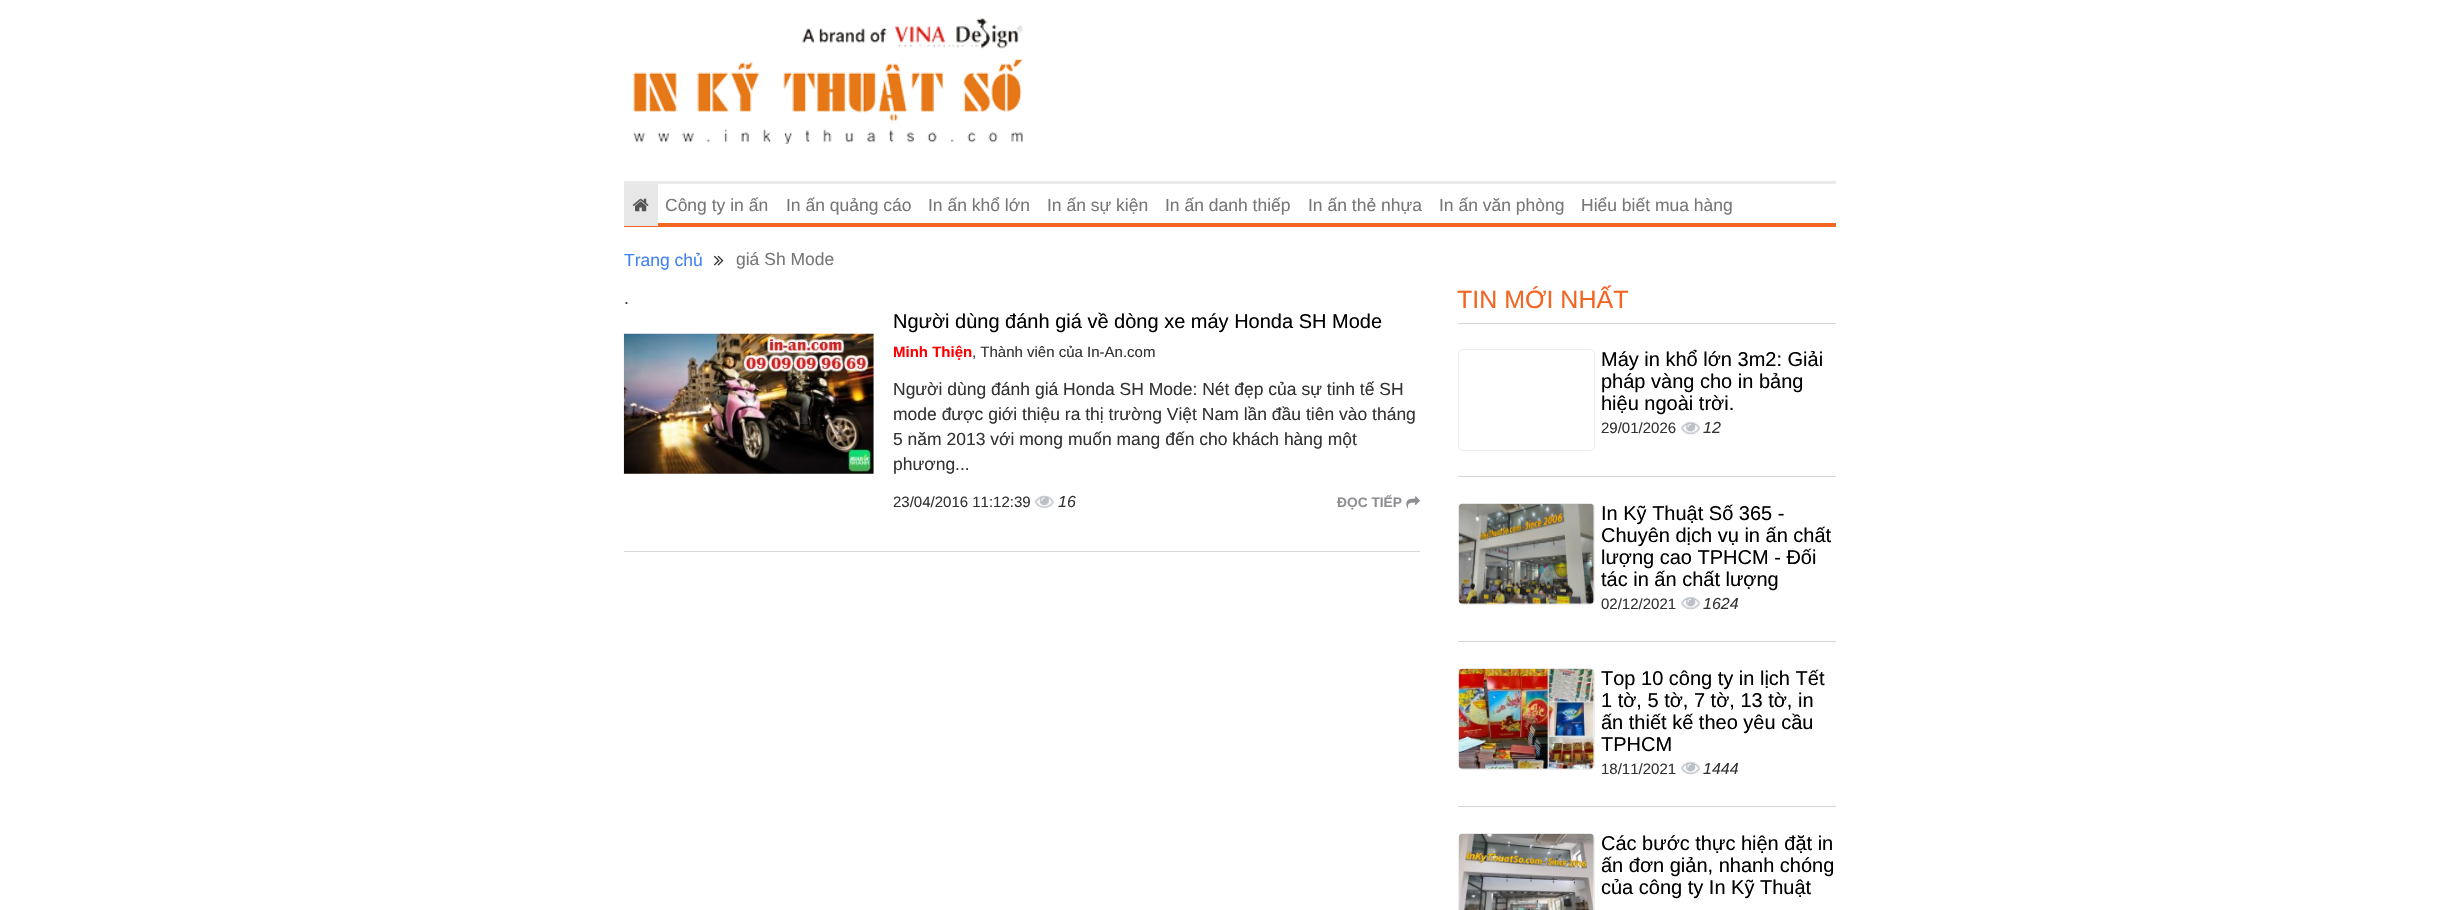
void draw(SkCanvas* canvas) {
    SkPaint paint;
    paint.setAntiAlias(true);
    auto face = [&](const char* family, int weight, float size, bool italic = false) {
        SkFontStyle style(weight, SkFontStyle::kNormal_Width,
            italic ? SkFontStyle::kItalic_Slant : SkFontStyle::kUpright_Slant);
        SkFont result(fontMgr->matchFamilyStyle(family, style), size);
        result.setSubpixel(true);
        return result;
    };
    auto write = [&](const char* s, float x, float y, const SkFont& font, SkColor color) {
        SkPaint ink(SkColor4f::FromColor(color));
        ink.setAntiAlias(true);
        canvas->drawString(s, x, y, font, ink);
    };
    auto block = [&](float x, float y, float w, float h, SkColor color) {
        SkPaint ink(SkColor4f::FromColor(color));
        ink.setAntiAlias(true);
        canvas->drawRect(SkRect::MakeXYWH(x, y, w, h), ink);
    };
    auto paste = [&](const char* path, float x, float y, float w, float h) {
        auto image = SkImages::DeferredFromEncodedData(SkData::MakeFromFileName(path));
        canvas->drawImageRect(image, SkRect::MakeXYWH(x, y, w, h), SkSamplingOptions());
    };
    canvas->clear(SK_ColorWHITE);
    paste("pic1.png", 633, 18, 390, 126);
    block(624, 181, 1212, 3, SkColorSetRGB(234, 234, 234));
    block(624, 223, 1212, 4, SkColorSetRGB(242, 101, 34));
    block(624, 184, 34, 42, SkColorSetRGB(231, 231, 231));
    paste("pic2.png", 632, 198, 17, 14);
    auto kFont1 = face("Liberation Sans", 400, 17.5f);
    write("Công ty in ấn", 665, 211, kFont1, SkColorSetRGB(119, 119, 119));
    write("In ấn quảng cáo", 786, 211, kFont1, SkColorSetRGB(119, 119, 119));
    write("In ấn khổ lớn", 928, 211, kFont1, SkColorSetRGB(119, 119, 119));
    write("In ấn sự kiện", 1047, 211, kFont1, SkColorSetRGB(119, 119, 119));
    write("In ấn danh thiếp", 1165, 211, kFont1, SkColorSetRGB(119, 119, 119));
    write("In ấn thẻ nhựa", 1308, 211, kFont1, SkColorSetRGB(119, 119, 119));
    write("In ấn văn phòng", 1439, 211, kFont1, SkColorSetRGB(119, 119, 119));
    write("Hiểu biết mua hàng", 1581, 211, kFont1, SkColorSetRGB(119, 119, 119));
    write("Trang chủ", 624, 266, kFont1, SkColorSetRGB(66, 132, 244));
    paste("pic3.png", 713, 255, 11, 11);
    write("giá Sh Mode", 736, 265, kFont1, SkColorSetRGB(119, 119, 119));
    write(".", 624, 304, kFont1, SkColorSetRGB(51, 51, 51));
    block(624, 551, 796, 1, SkColorSetRGB(215, 215, 215));
    paste("pic4.png", 623, 333, 251, 141);
    auto kFont2 = face("Liberation Sans", 400, 20);
    write("Người dùng đánh giá về dòng xe máy Honda SH Mode", 893, 328, kFont2, SK_ColorBLACK);
    auto kFont3 = face("Liberation Sans", 700, 15);
    write("Minh Thiện", 893, 357, kFont3, SkColorSetRGB(255, 0, 0));
    auto kFont4 = face("Liberation Sans", 400, 15);
    write(", Thành viên của In-An.com", 972, 357, kFont4, SkColorSetRGB(51, 51, 51));
    write("Người dùng đánh giá Honda SH Mode: Nét đẹp của sự tinh tế SH", 893, 395, kFont1, SkColorSetRGB(51, 51, 51));
    write("mode được giới thiệu ra thị trường Việt Nam lần đầu tiên vào tháng", 893, 420, kFont1, SkColorSetRGB(51, 51, 51));
    write("5 năm 2013 với mong muốn mang đến cho khách hàng một", 893, 445, kFont1, SkColorSetRGB(51, 51, 51));
    write("phương...", 893, 470, kFont1, SkColorSetRGB(51, 51, 51));
    write("23/04/2016 11:12:39", 893, 507, kFont4, SkColorSetRGB(51, 51, 51));
    paste("pic5.png", 1035, 495, 19, 14);
    auto kFont5 = face("Liberation Sans", 400, 16, true);
    write("16", 1058, 507, kFont5, SkColorSetRGB(51, 51, 51));
    auto kFont6 = face("Liberation Sans", 700, 13.75f);
    write("ĐỌC TIẾP", 1337, 507, kFont6, SkColorSetRGB(142, 142, 147));
    paste("pic6.png", 1406, 496, 14, 13);
    block(1458, 323, 378, 1, SkColorSetRGB(215, 215, 215));
    auto kFont7 = face("Liberation Sans", 400, 25);
    write("TIN MỚI NHẤT", 1457, 308, kFont7, SkColorSetRGB(242, 101, 34));
    block(1458, 476, 378, 1, SkColorSetRGB(215, 215, 215));
    paint.setStyle(SkPaint::kStroke_Style);
    paint.setStrokeWidth(1);
    paint.setColor(SkColorSetRGB(237, 237, 237));
    canvas->drawRoundRect(SkRect::MakeXYWH(1458.5f, 349.5f, 136, 101), 4.5f, 4.5f, paint);
    write("Máy in khổ lớn 3m2: Giải", 1601, 366, kFont2, SK_ColorBLACK);
    write("pháp vàng cho in bảng", 1601, 388, kFont2, SK_ColorBLACK);
    write("hiệu ngoài trời.", 1601, 410, kFont2, SK_ColorBLACK);
    write("29/01/2026", 1601, 433, kFont4, SkColorSetRGB(51, 51, 51));
    paste("pic7.png", 1681, 421, 19, 14);
    write("12", 1703, 433, kFont5, SkColorSetRGB(51, 51, 51));
    block(1458, 641, 378, 1, SkColorSetRGB(215, 215, 215));
    canvas->drawRoundRect(SkRect::MakeXYWH(1458.5f, 503.5f, 136, 101), 4.5f, 4.5f, paint);
    paste("pic8.png", 1458, 503, 136, 101);
    write("In Kỹ Thuật Số 365 -", 1601, 520, kFont2, SK_ColorBLACK);
    write("Chuyên dịch vụ in ấn chất", 1601, 542, kFont2, SK_ColorBLACK);
    write("lượng cao TPHCM - Đối", 1601, 564, kFont2, SK_ColorBLACK);
    write("tác in ấn chất lượng", 1601, 586, kFont2, SK_ColorBLACK);
    write("02/12/2021", 1601, 609, kFont4, SkColorSetRGB(51, 51, 51));
    paste("pic7.png", 1681, 596, 19, 14);
    write("1624", 1703, 609, kFont5, SkColorSetRGB(51, 51, 51));
    block(1458, 806, 378, 1, SkColorSetRGB(215, 215, 215));
    canvas->drawRoundRect(SkRect::MakeXYWH(1458.5f, 668.5f, 136, 101), 4.5f, 4.5f, paint);
    paste("pic9.png", 1458, 668, 136, 101);
    write("Top 10 công ty in lịch Tết", 1601, 685, kFont2, SK_ColorBLACK);
    write("1 tờ, 5 tờ, 7 tờ, 13 tờ, in", 1601, 707, kFont2, SK_ColorBLACK);
    write("ấn thiết kế theo yêu cầu", 1601, 729, kFont2, SK_ColorBLACK);
    write("TPHCM", 1601, 751, kFont2, SK_ColorBLACK);
    write("18/11/2021", 1601, 774, kFont4, SkColorSetRGB(51, 51, 51));
    paste("pic7.png", 1681, 761, 19, 14);
    write("1444", 1703, 774, kFont5, SkColorSetRGB(51, 51, 51));
    canvas->drawRoundRect(SkRect::MakeXYWH(1458.5f, 833.5f, 136, 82), 4.5f, 4.5f, paint);
    paste("pic10.png", 1459, 833, 135, 77);
    write("Các bước thực hiện đặt in", 1601, 850, kFont2, SK_ColorBLACK);
    write("ấn đơn giản, nhanh chóng", 1601, 872, kFont2, SK_ColorBLACK);
    write("của công ty In Kỹ Thuật", 1601, 894, kFont2, SK_ColorBLACK);
}
